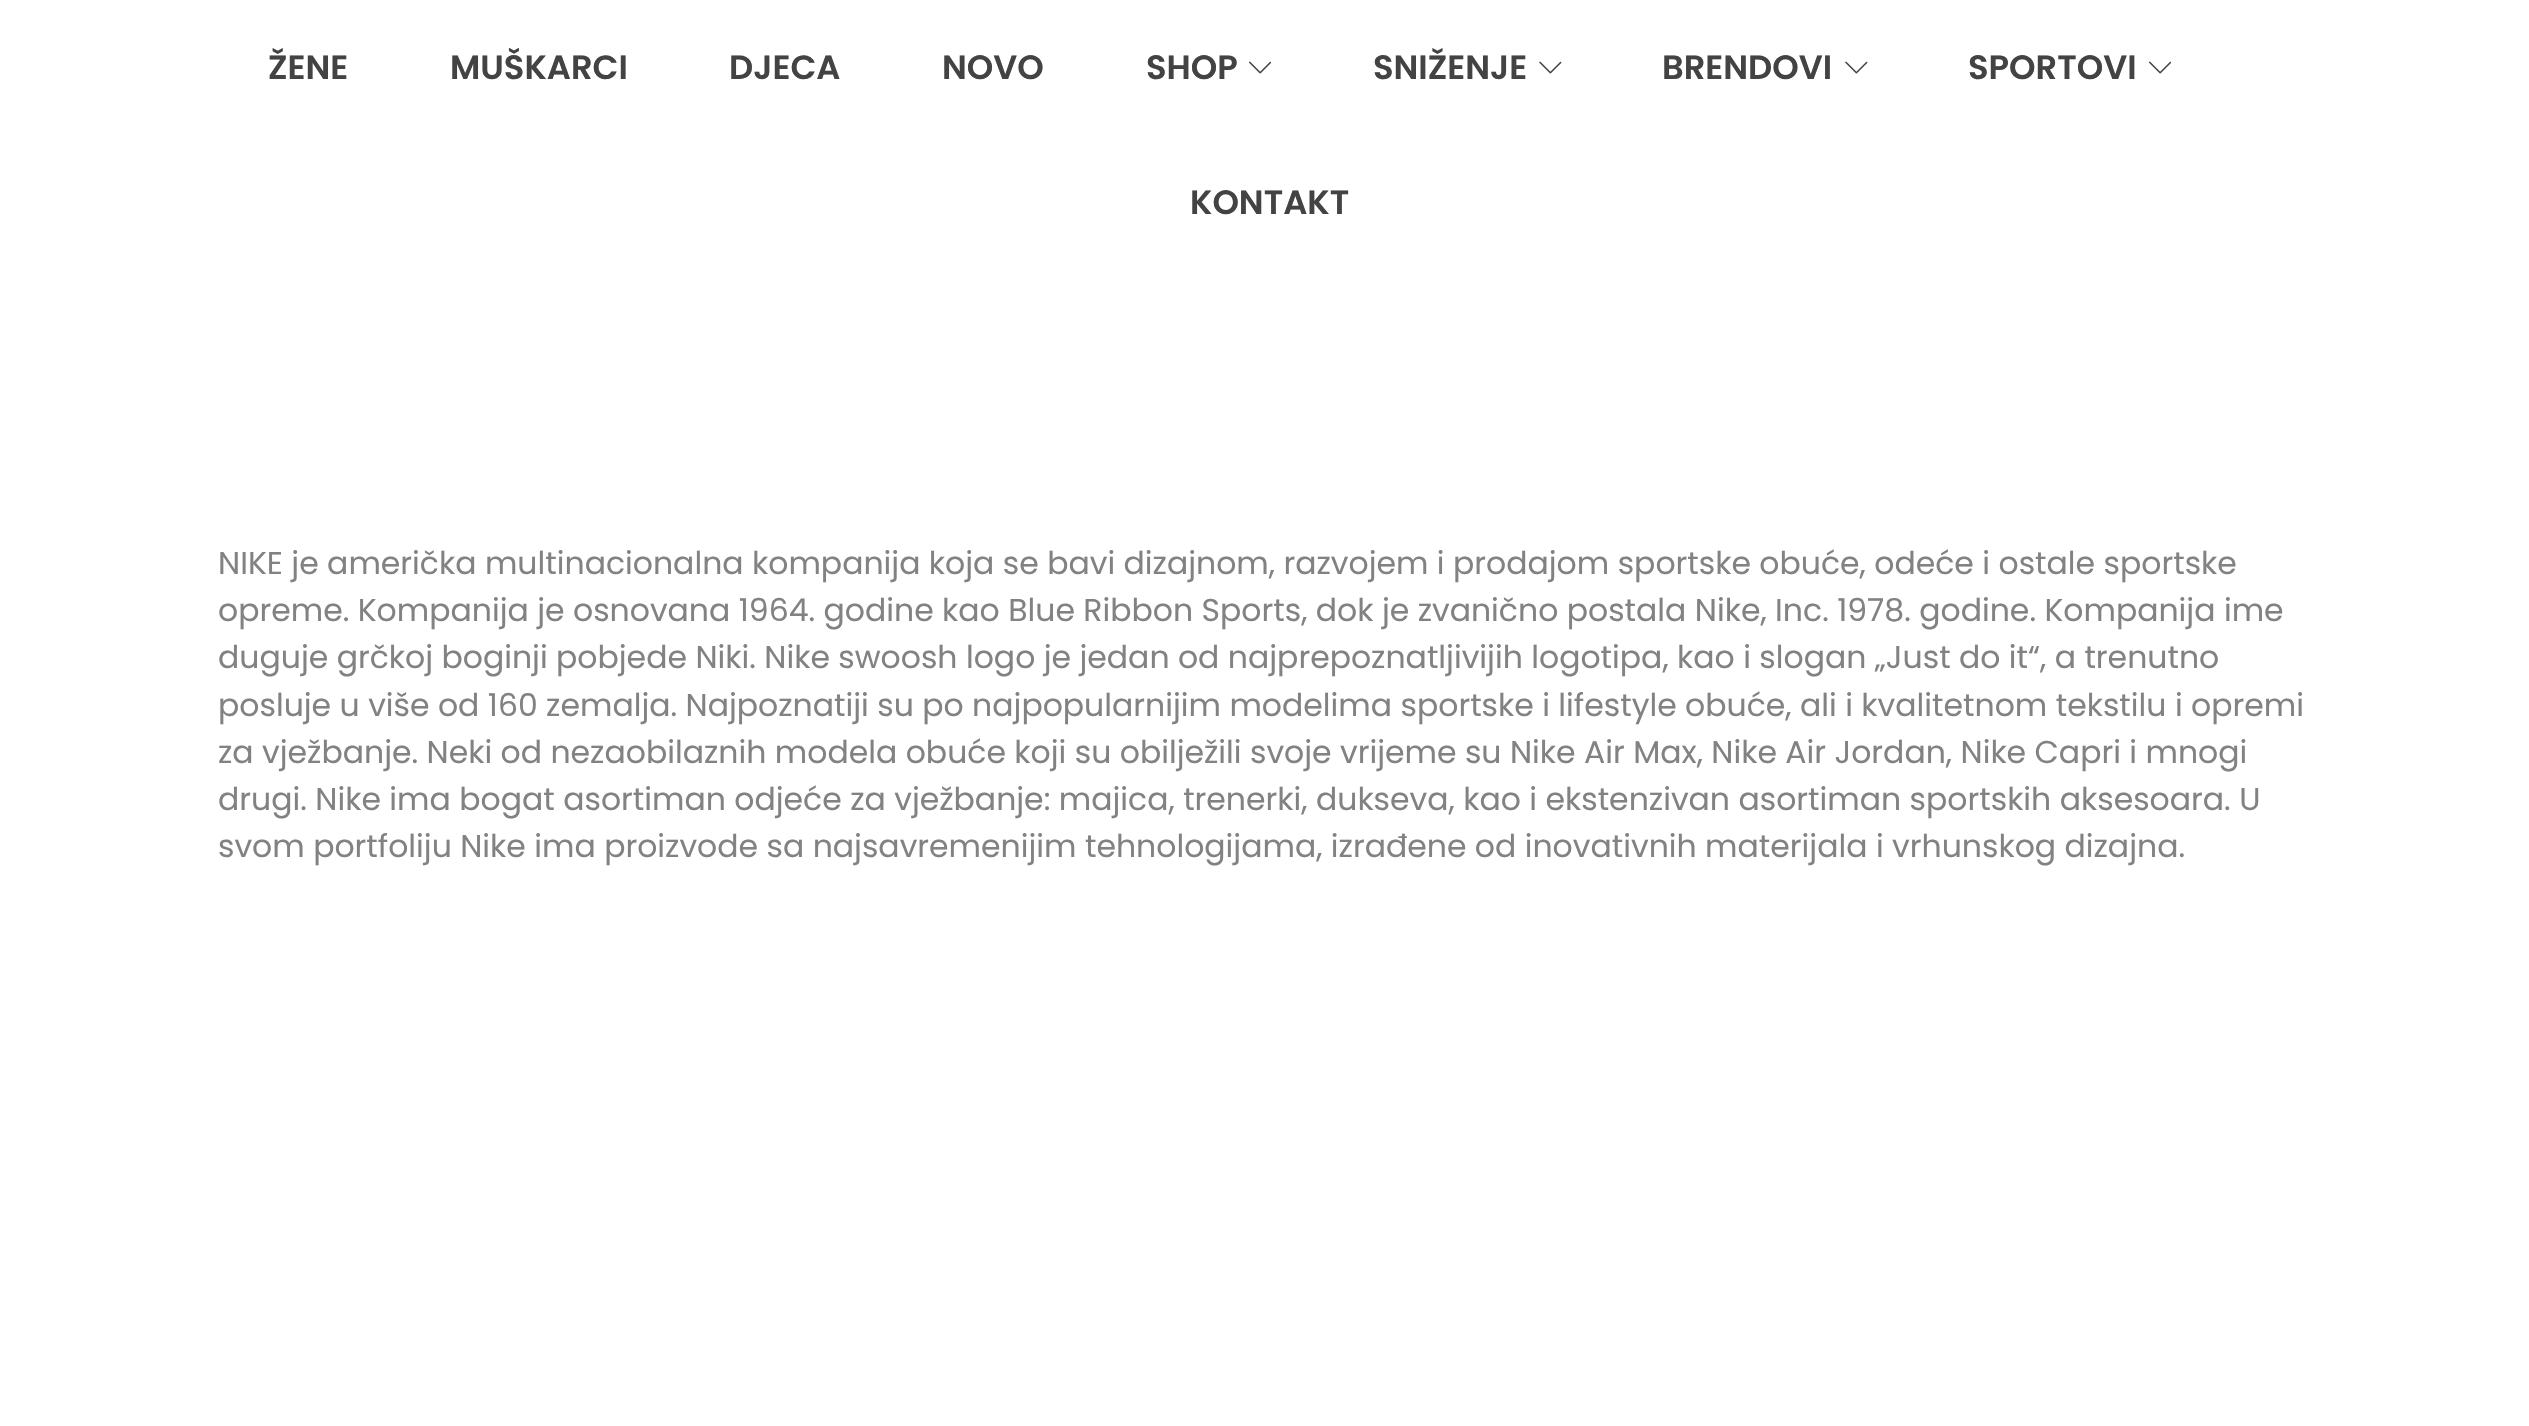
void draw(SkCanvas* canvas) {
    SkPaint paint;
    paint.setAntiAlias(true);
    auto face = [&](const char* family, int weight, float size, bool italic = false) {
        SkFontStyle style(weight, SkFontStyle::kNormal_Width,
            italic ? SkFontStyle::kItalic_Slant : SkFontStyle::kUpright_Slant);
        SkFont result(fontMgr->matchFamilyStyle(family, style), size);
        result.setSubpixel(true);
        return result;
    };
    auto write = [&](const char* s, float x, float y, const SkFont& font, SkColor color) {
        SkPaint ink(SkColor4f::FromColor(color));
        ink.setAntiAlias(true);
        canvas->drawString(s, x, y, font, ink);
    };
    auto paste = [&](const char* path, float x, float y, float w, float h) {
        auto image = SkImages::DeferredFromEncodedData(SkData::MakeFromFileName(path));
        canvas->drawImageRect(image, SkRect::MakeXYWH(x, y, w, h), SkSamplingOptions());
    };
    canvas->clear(SK_ColorWHITE);
    auto kFont1 = face("Poppins", 600, 33.75f);
    write("ŽENE", 268, 79, kFont1, SkColorSetRGB(67, 67, 67));
    write("MUŠKARCI", 450, 79, kFont1, SkColorSetRGB(67, 67, 67));
    write("DJECA", 729, 79, kFont1, SkColorSetRGB(67, 67, 67));
    write("NOVO", 942, 79, kFont1, SkColorSetRGB(67, 67, 67));
    write("SHOP", 1146, 79, kFont1, SkColorSetRGB(67, 67, 67));
    paste("pic1.png", 1249, 61, 22, 13);
    write("SNIŽENJE", 1373, 79, kFont1, SkColorSetRGB(67, 67, 67));
    paste("pic2.png", 1539, 61, 23, 13);
    write("BRENDOVI", 1662, 79, kFont1, SkColorSetRGB(67, 67, 67));
    paste("pic2.png", 1845, 61, 23, 13);
    write("SPORTOVI", 1968, 79, kFont1, SkColorSetRGB(67, 67, 67));
    paste("pic1.png", 2149, 61, 22, 13);
    write("KONTAKT", 1190, 214, kFont1, SkColorSetRGB(67, 67, 67));
    auto kFont2 = face("Poppins", 400, 31.5f);
    write("NIKE je američka multinacionalna kompanija koja se bavi dizajnom, razvojem i prodajom sportske obuće, odeće i ostale sportske", 218, 574, kFont2, SkColorSetRGB(130, 130, 130));
    write("opreme. Kompanija je osnovana 1964. godine kao Blue Ribbon Sports, dok je zvanično postala Nike, Inc. 1978. godine. Kompanija ime", 218, 621, kFont2, SkColorSetRGB(130, 130, 130));
    write("duguje grčkoj boginji pobjede Niki. Nike swoosh logo je jedan od najprepoznatljivijih logotipa, kao i slogan „Just do it“, a trenutno", 218, 668, kFont2, SkColorSetRGB(130, 130, 130));
    write("posluje u više od 160 zemalja. Najpoznatiji su po najpopularnijim modelima sportske i lifestyle obuće, ali i kvalitetnom tekstilu i opremi", 218, 716, kFont2, SkColorSetRGB(130, 130, 130));
    write("za vježbanje. Neki od nezaobilaznih modela obuće koji su obilježili svoje vrijeme su Nike Air Max, Nike Air Jordan, Nike Capri i mnogi", 218, 763, kFont2, SkColorSetRGB(130, 130, 130));
    write("drugi. Nike ima bogat asortiman odjeće za vježbanje: majica, trenerki, dukseva, kao i ekstenzivan asortiman sportskih aksesoara. U", 218, 810, kFont2, SkColorSetRGB(130, 130, 130));
    write("svom portfoliju Nike ima proizvode sa najsavremenijim tehnologijama, izrađene od inovativnih materijala i vrhunskog dizajna.", 218, 857, kFont2, SkColorSetRGB(130, 130, 130));
}
